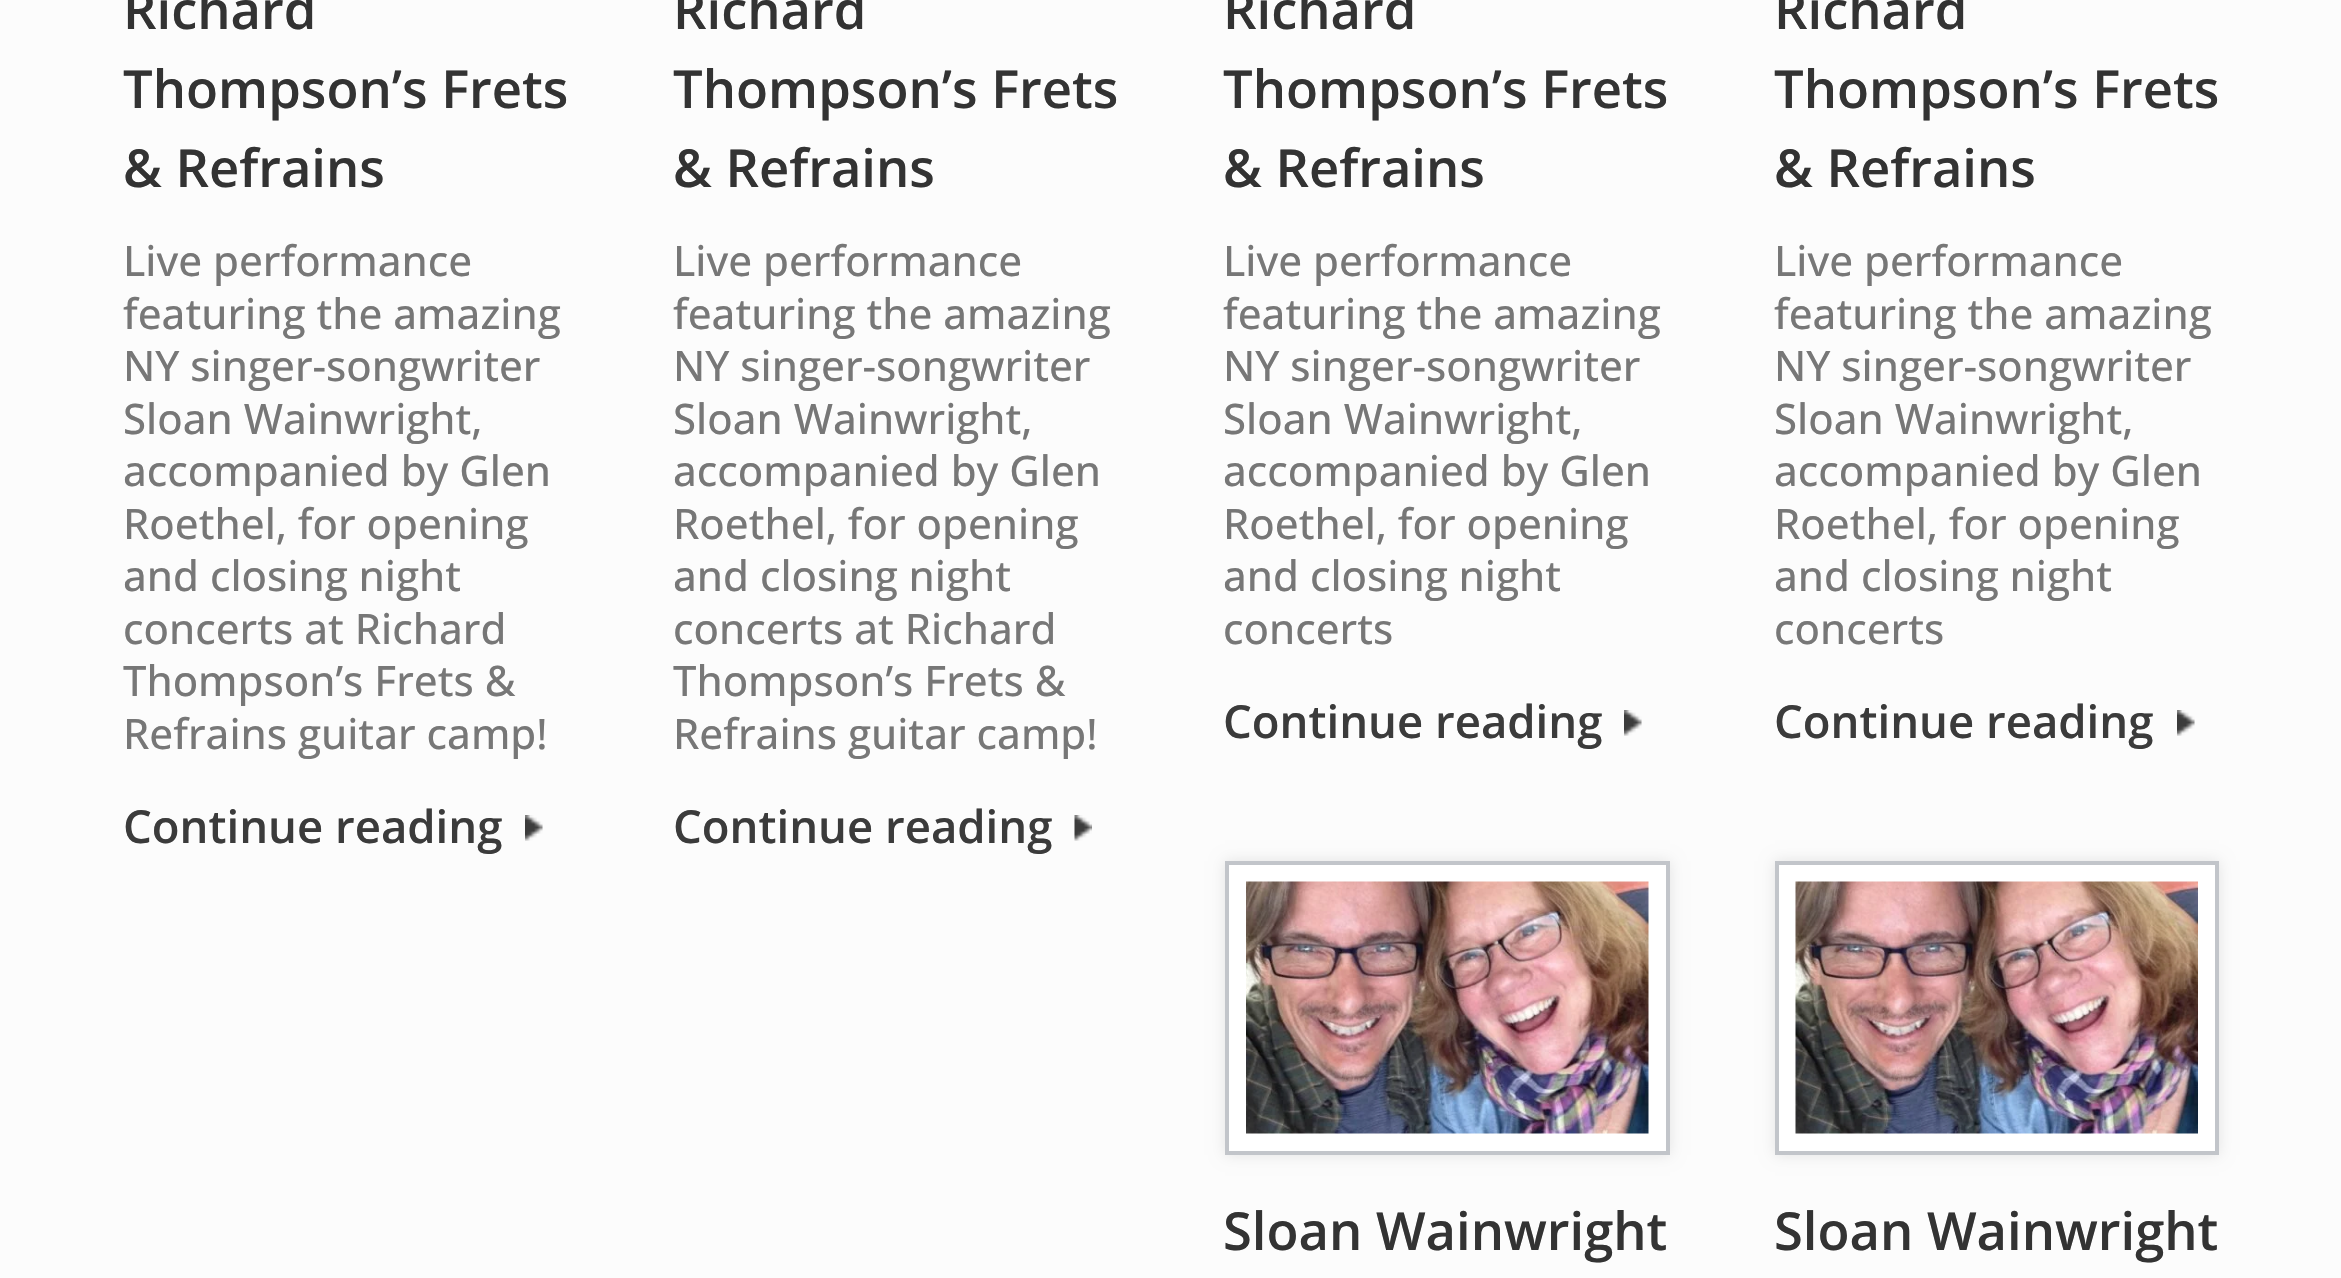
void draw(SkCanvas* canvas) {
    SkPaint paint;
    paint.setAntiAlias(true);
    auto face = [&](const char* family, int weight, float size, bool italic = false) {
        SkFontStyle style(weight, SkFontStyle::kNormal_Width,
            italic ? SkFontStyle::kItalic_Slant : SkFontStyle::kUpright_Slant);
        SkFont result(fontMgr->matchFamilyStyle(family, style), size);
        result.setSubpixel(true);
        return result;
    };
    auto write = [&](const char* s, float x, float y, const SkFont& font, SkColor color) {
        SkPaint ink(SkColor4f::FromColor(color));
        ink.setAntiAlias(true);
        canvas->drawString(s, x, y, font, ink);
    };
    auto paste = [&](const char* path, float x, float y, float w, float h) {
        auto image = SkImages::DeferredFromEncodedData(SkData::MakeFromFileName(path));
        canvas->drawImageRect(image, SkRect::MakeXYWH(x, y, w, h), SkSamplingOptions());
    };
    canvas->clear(SkColorSetRGB(252, 252, 252));
    auto kFont1 = face("Open Sans", 600, 52.5f);
    write("Richard", 123, 29, kFont1, SkColorSetRGB(51, 51, 51));
    write("Thompson’s Frets", 123, 108, kFont1, SkColorSetRGB(51, 51, 51));
    write("& Refrains", 123, 187, kFont1, SkColorSetRGB(51, 51, 51));
    auto kFont2 = face("Open Sans", 500, 42);
    write("Live performance", 123, 276, kFont2, SkColorSetRGB(119, 119, 119));
    write("featuring the amazing", 123, 329, kFont2, SkColorSetRGB(119, 119, 119));
    write("NY singer-songwriter", 123, 381, kFont2, SkColorSetRGB(119, 119, 119));
    write("Sloan Wainwright,", 123, 434, kFont2, SkColorSetRGB(119, 119, 119));
    write("accompanied by Glen", 123, 486, kFont2, SkColorSetRGB(119, 119, 119));
    write("Roethel, for opening", 123, 539, kFont2, SkColorSetRGB(119, 119, 119));
    write("and closing night", 123, 591, kFont2, SkColorSetRGB(119, 119, 119));
    write("concerts at Richard", 123, 644, kFont2, SkColorSetRGB(119, 119, 119));
    write("Thompson’s Frets &", 123, 696, kFont2, SkColorSetRGB(119, 119, 119));
    write("Refrains guitar camp!", 123, 749, kFont2, SkColorSetRGB(119, 119, 119));
    auto kFont3 = face("Open Sans", 600, 45.5f);
    write("Continue reading", 123, 843, kFont3, SkColorSetRGB(59, 59, 59));
    paste("pic1.png", 525, 815, 18, 26);
    write("Richard", 673, 29, kFont1, SkColorSetRGB(51, 51, 51));
    write("Thompson’s Frets", 673, 108, kFont1, SkColorSetRGB(51, 51, 51));
    write("& Refrains", 673, 187, kFont1, SkColorSetRGB(51, 51, 51));
    write("Live performance", 673, 276, kFont2, SkColorSetRGB(119, 119, 119));
    write("featuring the amazing", 673, 329, kFont2, SkColorSetRGB(119, 119, 119));
    write("NY singer-songwriter", 673, 381, kFont2, SkColorSetRGB(119, 119, 119));
    write("Sloan Wainwright,", 673, 434, kFont2, SkColorSetRGB(119, 119, 119));
    write("accompanied by Glen", 673, 486, kFont2, SkColorSetRGB(119, 119, 119));
    write("Roethel, for opening", 673, 539, kFont2, SkColorSetRGB(119, 119, 119));
    write("and closing night", 673, 591, kFont2, SkColorSetRGB(119, 119, 119));
    write("concerts at Richard", 673, 644, kFont2, SkColorSetRGB(119, 119, 119));
    write("Thompson’s Frets &", 673, 696, kFont2, SkColorSetRGB(119, 119, 119));
    write("Refrains guitar camp!", 673, 749, kFont2, SkColorSetRGB(119, 119, 119));
    write("Continue reading", 673, 843, kFont3, SkColorSetRGB(59, 59, 59));
    paste("pic2.png", 1074, 815, 18, 26);
    write("Richard", 1223, 29, kFont1, SkColorSetRGB(51, 51, 51));
    write("Thompson’s Frets", 1223, 108, kFont1, SkColorSetRGB(51, 51, 51));
    write("& Refrains", 1223, 187, kFont1, SkColorSetRGB(51, 51, 51));
    write("Live performance", 1223, 276, kFont2, SkColorSetRGB(119, 119, 119));
    write("featuring the amazing", 1223, 329, kFont2, SkColorSetRGB(119, 119, 119));
    write("NY singer-songwriter", 1223, 381, kFont2, SkColorSetRGB(119, 119, 119));
    write("Sloan Wainwright,", 1223, 434, kFont2, SkColorSetRGB(119, 119, 119));
    write("accompanied by Glen", 1223, 486, kFont2, SkColorSetRGB(119, 119, 119));
    write("Roethel, for opening", 1223, 539, kFont2, SkColorSetRGB(119, 119, 119));
    write("and closing night", 1223, 591, kFont2, SkColorSetRGB(119, 119, 119));
    write("concerts", 1223, 644, kFont2, SkColorSetRGB(119, 119, 119));
    write("Continue reading", 1223, 738, kFont3, SkColorSetRGB(59, 59, 59));
    paste("pic3.png", 1624, 710, 18, 26);
    write("Richard", 1774, 29, kFont1, SkColorSetRGB(51, 51, 51));
    write("Thompson’s Frets", 1774, 108, kFont1, SkColorSetRGB(51, 51, 51));
    write("& Refrains", 1774, 187, kFont1, SkColorSetRGB(51, 51, 51));
    write("Live performance", 1774, 276, kFont2, SkColorSetRGB(119, 119, 119));
    write("featuring the amazing", 1774, 329, kFont2, SkColorSetRGB(119, 119, 119));
    write("NY singer-songwriter", 1774, 381, kFont2, SkColorSetRGB(119, 119, 119));
    write("Sloan Wainwright,", 1774, 434, kFont2, SkColorSetRGB(119, 119, 119));
    write("accompanied by Glen", 1774, 486, kFont2, SkColorSetRGB(119, 119, 119));
    write("Roethel, for opening", 1774, 539, kFont2, SkColorSetRGB(119, 119, 119));
    write("and closing night", 1774, 591, kFont2, SkColorSetRGB(119, 119, 119));
    write("concerts", 1774, 644, kFont2, SkColorSetRGB(119, 119, 119));
    write("Continue reading", 1774, 738, kFont3, SkColorSetRGB(59, 59, 59));
    paste("pic3.png", 2177, 710, 18, 26);
    paint.setColor(SkColorSetARGB(26, 0, 0, 0));
    paint.setMaskFilter(SkMaskFilter::MakeBlur(kNormal_SkBlurStyle, 7));
    canvas->drawRect(SkRect::MakeXYWH(1225, 861, 445, 294), paint);
    paint.setMaskFilter(nullptr);
    paint.setColor(SK_ColorWHITE);
    canvas->drawRect(SkRect::MakeXYWH(1227, 863, 441, 290), paint);
    paint.setStyle(SkPaint::kStroke_Style);
    paint.setStrokeWidth(4);
    paint.setColor(SkColorSetRGB(194, 197, 202));
    canvas->drawRect(SkRect::MakeXYWH(1227, 863, 441, 290), paint);
    paste("pic4.png", 1246, 881, 403, 253);
    write("Sloan Wainwright", 1223, 1250, kFont1, SkColorSetRGB(51, 51, 51));
    paint.setStyle(SkPaint::kFill_Style);
    paint.setColor(SkColorSetARGB(26, 0, 0, 0));
    paint.setMaskFilter(SkMaskFilter::MakeBlur(kNormal_SkBlurStyle, 7));
    canvas->drawRect(SkRect::MakeXYWH(1775, 861, 444, 294), paint);
    paint.setMaskFilter(nullptr);
    paint.setColor(SK_ColorWHITE);
    canvas->drawRect(SkRect::MakeXYWH(1777, 863, 440, 290), paint);
    paint.setStyle(SkPaint::kStroke_Style);
    paint.setColor(SkColorSetRGB(194, 197, 202));
    canvas->drawRect(SkRect::MakeXYWH(1777, 863, 440, 290), paint);
    paste("pic5.png", 1795, 881, 403, 253);
    write("Sloan Wainwright", 1774, 1250, kFont1, SkColorSetRGB(51, 51, 51));
}
